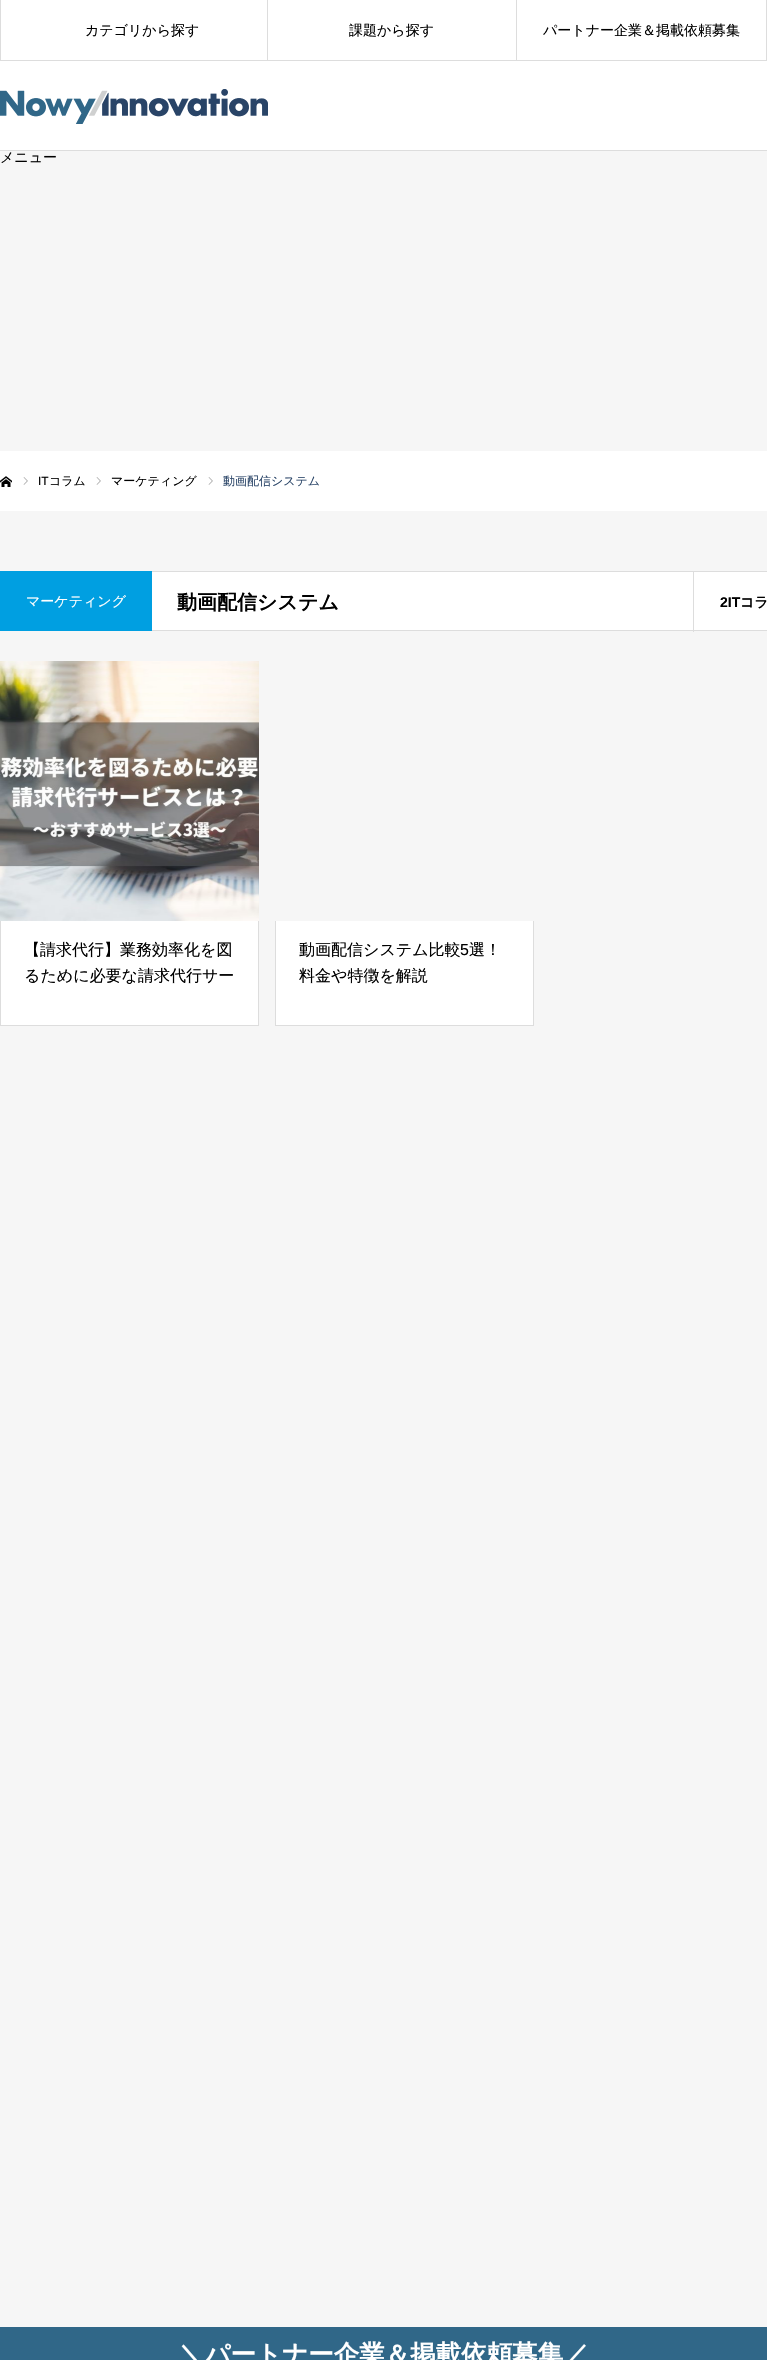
void draw(SkCanvas* canvas) {
    SkPaint paint;
    paint.setAntiAlias(true);
    auto face = [&](const char* family, int weight, float size, bool italic = false) {
        SkFontStyle style(weight, SkFontStyle::kNormal_Width,
            italic ? SkFontStyle::kItalic_Slant : SkFontStyle::kUpright_Slant);
        SkFont result(fontMgr->matchFamilyStyle(family, style), size);
        result.setSubpixel(true);
        return result;
    };
    auto write = [&](const char* s, float x, float y, const SkFont& font, SkColor color) {
        SkPaint ink(SkColor4f::FromColor(color));
        ink.setAntiAlias(true);
        canvas->drawString(s, x, y, font, ink);
    };
    auto block = [&](float x, float y, float w, float h, SkColor color) {
        SkPaint ink(SkColor4f::FromColor(color));
        ink.setAntiAlias(true);
        canvas->drawRect(SkRect::MakeXYWH(x, y, w, h), ink);
    };
    auto paste = [&](const char* path, float x, float y, float w, float h) {
        auto image = SkImages::DeferredFromEncodedData(SkData::MakeFromFileName(path));
        canvas->drawImageRect(image, SkRect::MakeXYWH(x, y, w, h), SkSamplingOptions());
    };
    canvas->clear(SkColorSetRGB(246, 246, 246));
    block(0, 0, 767, 150, SK_ColorWHITE);
    block(0, 150, 767, 1, SkColorSetRGB(221, 221, 221));
    block(0, 60, 767, 1, SkColorSetRGB(221, 221, 221));
    block(0, 0, 1, 60, SkColorSetRGB(221, 221, 221));
    block(267, 0, 1, 60, SkColorSetRGB(221, 221, 221));
    auto kFont1 = face("WenQuanYi Zen Hei", 500, 14);
    write("カテゴリから探す", 85, 35, kFont1, SK_ColorBLACK);
    block(516, 0, 1, 60, SkColorSetRGB(221, 221, 221));
    write("課題から探す", 349, 35, kFont1, SK_ColorBLACK);
    block(766, 0, 1, 60, SkColorSetRGB(221, 221, 221));
    write("パートナー企業＆掲載依頼募集", 543, 35, kFont1, SK_ColorBLACK);
    paste("pic1.png", 0, 89, 268, 35);
    write("メニュー", 0, 162, kFont1, SK_ColorBLACK);
    block(0, 451, 767, 60, SK_ColorWHITE);
    paste("pic2.png", 0, 476, 12, 11);
    paste("pic3.png", 23, 477, 5, 8);
    auto kFont2 = face("Liberation Sans", 400, 12);
    write("IT", 38, 485, kFont2, SK_ColorBLACK);
    auto kFont3 = face("WenQuanYi Zen Hei", 500, 12);
    write("コラム", 49, 485, kFont3, SK_ColorBLACK);
    paste("pic3.png", 96, 477, 5, 8);
    write("マーケティング", 111, 485, kFont3, SK_ColorBLACK);
    paste("pic3.png", 208, 477, 5, 8);
    write("動画配信システム", 223, 485, kFont3, SkColorSetRGB(42, 69, 104));
    block(152, 572, 615, 58, SK_ColorWHITE);
    paint.setStyle(SkPaint::kStroke_Style);
    paint.setStrokeWidth(1);
    paint.setColor(SkColorSetRGB(221, 221, 221));
    canvas->drawRect(SkRect::MakeXYWH(0.5f, 571.5f, 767, 59), paint);
    block(0, 571, 152, 60, SkColorSetRGB(0, 159, 225));
    write("マーケティング", 26, 606, kFont1, SK_ColorWHITE);
    auto kFont4 = face("WenQuanYi Zen Hei", 700, 20);
    write("動画配信システム", 177, 609, kFont4, SK_ColorBLACK);
    block(693, 572, 1, 60, SkColorSetRGB(221, 221, 221));
    auto kFont5 = face("Liberation Sans", 700, 14);
    write("2IT", 720, 607, kFont5, SK_ColorBLACK);
    auto kFont6 = face("WenQuanYi Zen Hei", 700, 14);
    write("コラ", 740, 607, kFont6, SK_ColorBLACK);
    paste("pic4.png", 0, 661, 259, 260);
    block(1, 921, 257, 104, SK_ColorWHITE);
    block(258, 921, 1, 105, SkColorSetRGB(221, 221, 221));
    block(0, 1025, 259, 1, SkColorSetRGB(221, 221, 221));
    block(0, 921, 1, 105, SkColorSetRGB(221, 221, 221));
    auto kFont7 = face("WenQuanYi Zen Hei", 500, 16);
    write("【請求代行】業務効率化を図", 24, 955, kFont7, SK_ColorBLACK);
    write("るために必要な請求代行サー", 24, 981, kFont7, SK_ColorBLACK);
    block(276, 921, 257, 104, SK_ColorWHITE);
    block(533, 921, 1, 105, SkColorSetRGB(221, 221, 221));
    block(275, 1025, 259, 1, SkColorSetRGB(221, 221, 221));
    block(275, 921, 1, 105, SkColorSetRGB(221, 221, 221));
    write("動画配信システム比較", 299, 955, kFont7, SK_ColorBLACK);
    auto kFont8 = face("Liberation Sans", 400, 16);
    write("5", 460, 955, kFont8, SK_ColorBLACK);
    write("選！", 469, 955, kFont7, SK_ColorBLACK);
    write("料金や特徴を解説", 299, 981, kFont7, SK_ColorBLACK);
    block(0, 2327, 767, 33, SkColorSetRGB(48, 103, 136));
    auto kFont9 = face("WenQuanYi Zen Hei", 700, 25.5f);
    write("＼パートナー企業＆掲載依頼募集／", 179, 2363, kFont9, SK_ColorWHITE);
}
